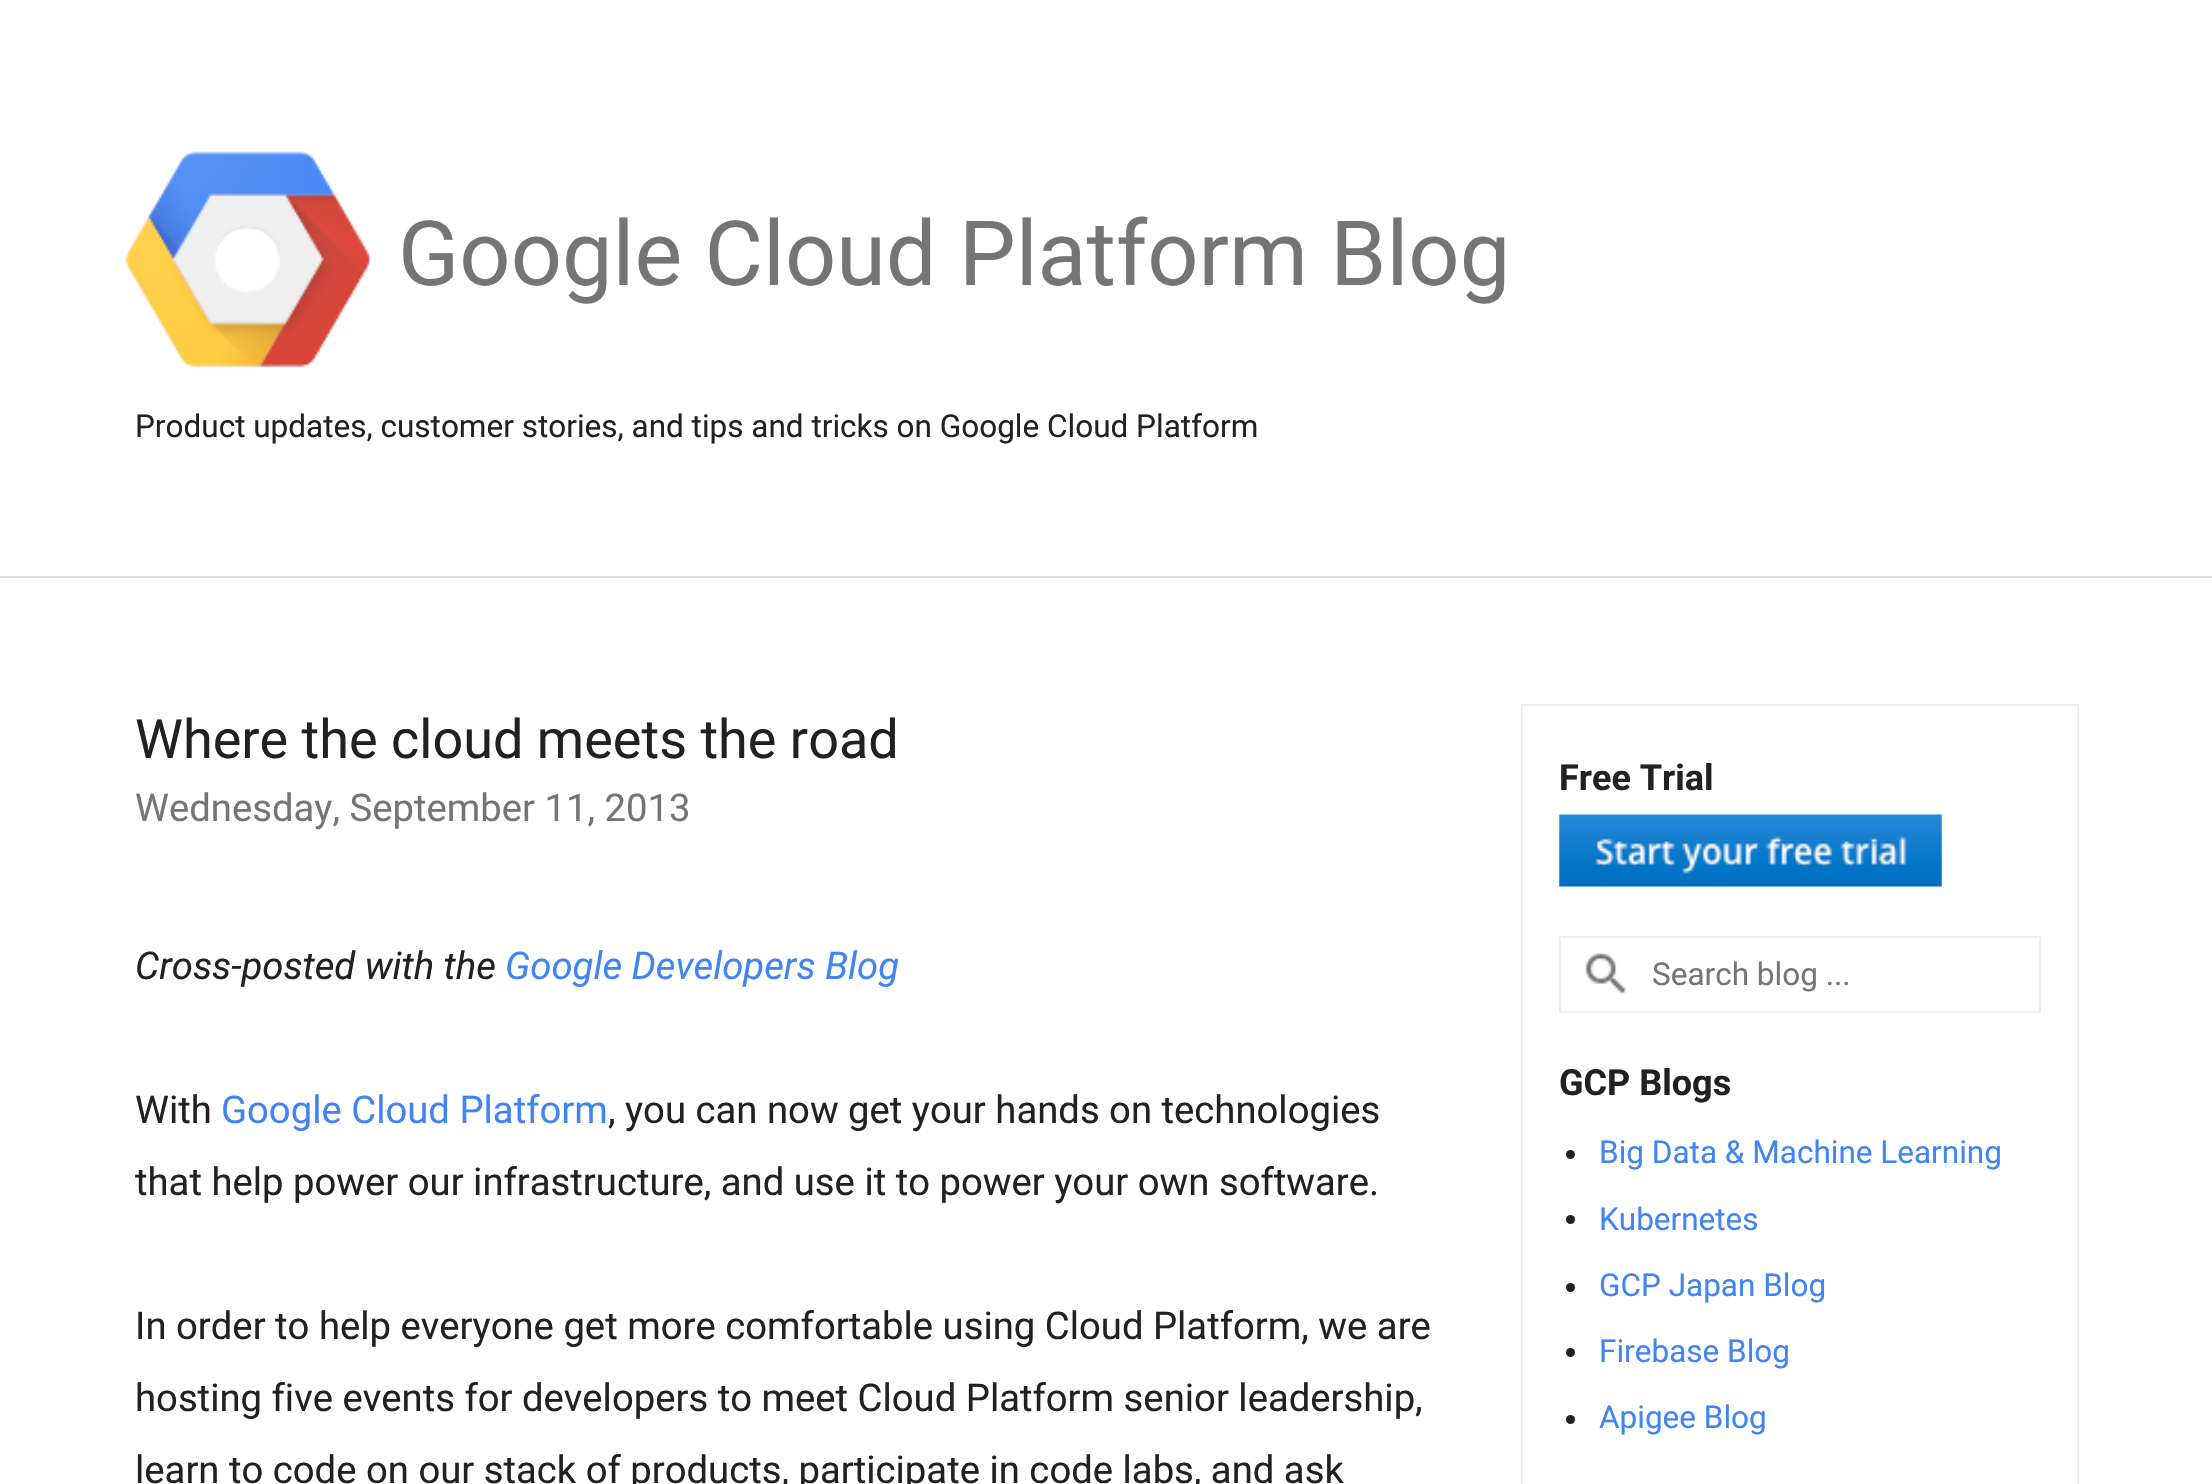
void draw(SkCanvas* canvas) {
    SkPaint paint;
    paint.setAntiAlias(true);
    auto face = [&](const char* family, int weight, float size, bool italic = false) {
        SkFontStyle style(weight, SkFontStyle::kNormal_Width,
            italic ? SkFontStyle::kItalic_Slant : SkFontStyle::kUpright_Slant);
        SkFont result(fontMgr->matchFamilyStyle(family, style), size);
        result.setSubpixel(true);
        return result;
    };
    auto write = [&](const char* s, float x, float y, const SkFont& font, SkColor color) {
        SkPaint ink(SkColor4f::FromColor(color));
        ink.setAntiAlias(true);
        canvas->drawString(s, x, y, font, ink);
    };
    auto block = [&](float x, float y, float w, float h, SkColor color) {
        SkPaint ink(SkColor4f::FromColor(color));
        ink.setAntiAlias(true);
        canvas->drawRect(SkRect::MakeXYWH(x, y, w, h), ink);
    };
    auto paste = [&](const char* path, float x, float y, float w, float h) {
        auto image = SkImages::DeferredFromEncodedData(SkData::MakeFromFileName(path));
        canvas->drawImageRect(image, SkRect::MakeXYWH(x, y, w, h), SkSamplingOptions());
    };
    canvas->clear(SK_ColorWHITE);
    block(0, 576, 2212, 2, SkColorSetRGB(224, 224, 224));
    paste("pic1.png", 126, 151, 244, 217);
    auto kFont1 = face("Roboto", 400, 90);
    write("Google Cloud Platform Blog", 398, 285, kFont1, SkColorSetRGB(117, 117, 117));
    auto kFont2 = face("Roboto", 400, 31.5f);
    write("Product updates, customer stories, and tips and tricks on Google Cloud Platform", 135, 437, kFont2, SkColorSetRGB(33, 33, 33));
    auto kFont3 = face("Roboto", 400, 54);
    write("Where the cloud meets the road", 135, 758, kFont3, SkColorSetRGB(33, 33, 33));
    auto kFont4 = face("Roboto", 400, 38.25f);
    write("Wednesday, September 11, 2013", 135, 821, kFont4, SkColorSetRGB(117, 117, 117));
    auto kFont5 = face("Roboto", 400, 38.25f, true);
    write("Cross-posted with the", 135, 979, kFont5, SkColorSetRGB(33, 33, 33));
    write("Google Developers Blog", 505, 979, kFont5, SkColorSetRGB(65, 132, 243));
    write("With", 135, 1123, kFont4, SkColorSetRGB(33, 33, 33));
    write("Google Cloud Platform", 221, 1123, kFont4, SkColorSetRGB(65, 132, 243));
    write(", you can now get your hands on technologies", 608, 1123, kFont4, SkColorSetRGB(33, 33, 33));
    write("that help power our infrastructure, and use it to power your own software.", 135, 1195, kFont4, SkColorSetRGB(33, 33, 33));
    write("In order to help everyone get more comfortable using Cloud Platform, we are", 135, 1339, kFont4, SkColorSetRGB(33, 33, 33));
    write("hosting five events for developers to meet Cloud Platform senior leadership,", 135, 1411, kFont4, SkColorSetRGB(33, 33, 33));
    write("learn to code on our stack of products, participate in code labs, and ask", 135, 1483, kFont4, SkColorSetRGB(33, 33, 33));
    paint.setStyle(SkPaint::kStroke_Style);
    paint.setStrokeWidth(2);
    paint.setColor(SkColorSetRGB(238, 238, 238));
    canvas->drawRect(SkRect::MakeXYWH(1522, 705, 556, 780), paint);
    auto kFont6 = face("Roboto", 700, 36);
    write("Free Trial", 1559, 790, kFont6, SkColorSetRGB(33, 33, 33));
    paste("pic2.png", 1559, 814, 383, 73);
    paste("pic3.png", 1585, 953, 42, 42);
    canvas->drawRect(SkRect::MakeXYWH(1560, 937, 480, 75), paint);
    write("Search blog ...", 1652, 985, kFont2, SkColorSetRGB(117, 117, 117));
    write("GCP Blogs", 1559, 1095, kFont6, SkColorSetRGB(33, 33, 33));
    paint.setStyle(SkPaint::kFill_Style);
    paint.setColor(SkColorSetRGB(33, 33, 33));
    canvas->drawCircle(1570.5f, 1154.5f, 4.5f, paint);
    write("Big Data & Machine Learning", 1599, 1163, kFont2, SkColorSetRGB(65, 132, 243));
    canvas->drawCircle(1570.5f, 1219.5f, 4.5f, paint);
    write("Kubernetes", 1599, 1230, kFont2, SkColorSetRGB(65, 132, 243));
    canvas->drawCircle(1570.5f, 1287.5f, 4.5f, paint);
    write("GCP Japan Blog", 1599, 1296, kFont2, SkColorSetRGB(65, 132, 243));
    canvas->drawCircle(1570.5f, 1352.5f, 4.5f, paint);
    write("Firebase Blog", 1599, 1362, kFont2, SkColorSetRGB(65, 132, 243));
    canvas->drawCircle(1570.5f, 1419.5f, 4.5f, paint);
    write("Apigee Blog", 1599, 1428, kFont2, SkColorSetRGB(65, 132, 243));
}
